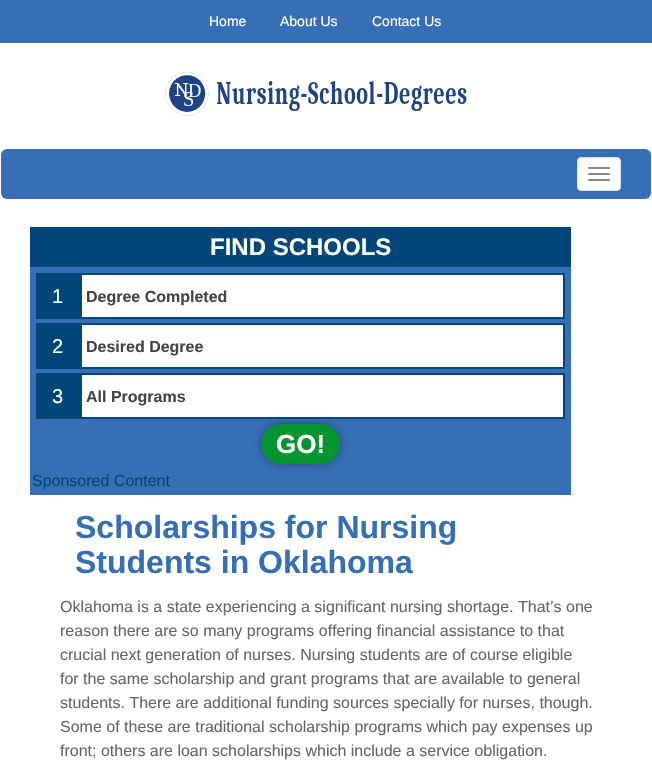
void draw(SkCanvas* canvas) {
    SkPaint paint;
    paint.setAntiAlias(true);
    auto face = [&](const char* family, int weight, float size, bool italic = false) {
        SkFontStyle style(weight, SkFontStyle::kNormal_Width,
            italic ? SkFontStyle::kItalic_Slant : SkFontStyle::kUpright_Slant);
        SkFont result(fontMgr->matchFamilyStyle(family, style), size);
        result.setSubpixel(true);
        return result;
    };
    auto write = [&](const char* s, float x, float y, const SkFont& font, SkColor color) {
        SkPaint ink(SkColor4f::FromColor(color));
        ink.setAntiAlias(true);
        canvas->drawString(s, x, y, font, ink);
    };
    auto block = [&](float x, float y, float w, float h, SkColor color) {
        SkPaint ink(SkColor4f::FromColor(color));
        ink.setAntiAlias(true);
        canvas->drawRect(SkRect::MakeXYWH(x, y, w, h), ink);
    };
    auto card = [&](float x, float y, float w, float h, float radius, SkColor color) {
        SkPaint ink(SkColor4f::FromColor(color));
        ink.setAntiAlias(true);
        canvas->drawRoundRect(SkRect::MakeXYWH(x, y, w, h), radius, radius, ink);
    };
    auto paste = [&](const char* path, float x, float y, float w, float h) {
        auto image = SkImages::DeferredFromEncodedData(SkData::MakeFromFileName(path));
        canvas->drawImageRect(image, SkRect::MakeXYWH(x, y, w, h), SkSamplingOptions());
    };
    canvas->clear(SK_ColorWHITE);
    block(0, 0, 652, 43, SkColorSetRGB(54, 111, 181));
    auto kFont1 = face("Liberation Sans", 400, 14);
    write("Home", 209, 26, kFont1, SK_ColorWHITE);
    write("About Us", 280, 26, kFont1, SK_ColorWHITE);
    write("Contact Us", 372, 26, kFont1, SK_ColorWHITE);
    paste("pic1.png", 165, 72, 302, 44);
    card(1, 149, 650, 50, 6, SkColorSetRGB(54, 111, 181));
    paint.setColor(SK_ColorWHITE);
    canvas->drawRoundRect(SkRect::MakeXYWH(577.5f, 157.5f, 43, 33), 3.5f, 3.5f, paint);
    paint.setStyle(SkPaint::kStroke_Style);
    paint.setStrokeWidth(1);
    paint.setColor(SkColorSetRGB(221, 221, 221));
    canvas->drawRoundRect(SkRect::MakeXYWH(577.5f, 157.5f, 43, 33), 3.5f, 3.5f, paint);
    card(588, 167, 22, 2, 1, SkColorSetRGB(136, 136, 136));
    card(588, 173, 22, 2, 1, SkColorSetRGB(136, 136, 136));
    card(588, 179, 22, 2, 1, SkColorSetRGB(136, 136, 136));
    block(30, 267, 541, 228, SkColorSetRGB(54, 111, 181));
    block(30, 227, 541, 40, SkColorSetRGB(1, 70, 120));
    auto kFont2 = face("Liberation Sans", 700, 24);
    write("FIND SCHOOLS", 210, 255, kFont2, SK_ColorWHITE);
    block(36, 273, 44, 46, SkColorSetRGB(1, 70, 120));
    auto kFont3 = face("Liberation Sans", 400, 20);
    write("1", 52, 303, kFont3, SK_ColorWHITE);
    paint.setStyle(SkPaint::kFill_Style);
    paint.setColor(SK_ColorWHITE);
    canvas->drawRect(SkRect::MakeXYWH(81, 274, 483, 44), paint);
    paint.setStyle(SkPaint::kStroke_Style);
    paint.setStrokeWidth(2);
    paint.setColor(SkColorSetRGB(1, 70, 120));
    canvas->drawRect(SkRect::MakeXYWH(81, 274, 483, 44), paint);
    auto kFont4 = face("Liberation Sans", 700, 16);
    write("Degree Completed", 86, 302, kFont4, SkColorSetRGB(68, 68, 68));
    block(36, 323, 44, 46, SkColorSetRGB(1, 70, 120));
    write("2", 52, 353, kFont3, SK_ColorWHITE);
    paint.setStyle(SkPaint::kFill_Style);
    paint.setColor(SK_ColorWHITE);
    canvas->drawRect(SkRect::MakeXYWH(81, 324, 483, 44), paint);
    paint.setStyle(SkPaint::kStroke_Style);
    paint.setColor(SkColorSetRGB(1, 70, 120));
    canvas->drawRect(SkRect::MakeXYWH(81, 324, 483, 44), paint);
    write("Desired Degree", 86, 352, kFont4, SkColorSetRGB(68, 68, 68));
    block(36, 373, 44, 46, SkColorSetRGB(1, 70, 120));
    write("3", 52, 403, kFont3, SK_ColorWHITE);
    paint.setStyle(SkPaint::kFill_Style);
    paint.setColor(SK_ColorWHITE);
    canvas->drawRect(SkRect::MakeXYWH(81, 374, 483, 44), paint);
    paint.setStyle(SkPaint::kStroke_Style);
    paint.setColor(SkColorSetRGB(1, 70, 120));
    canvas->drawRect(SkRect::MakeXYWH(81, 374, 483, 44), paint);
    write("All Programs", 86, 402, kFont4, SkColorSetRGB(68, 68, 68));
    paint.setStyle(SkPaint::kFill_Style);
    paint.setColor(SkColorSetARGB(89, 0, 0, 0));
    paint.setMaskFilter(SkMaskFilter::MakeBlur(kNormal_SkBlurStyle, 4));
    canvas->drawRoundRect(SkRect::MakeXYWH(261, 424, 79, 40), 20, 20, paint);
    paint.setMaskFilter(nullptr);
    card(261, 424, 79, 40, 20, SkColorSetRGB(4, 149, 48));
    auto kFont5 = face("Liberation Sans", 700, 26);
    write("GO!", 276, 453, kFont5, SK_ColorWHITE);
    auto kFont6 = face("Liberation Sans", 400, 16);
    write("Sponsored Content", 32, 486, kFont6, SkColorSetRGB(1, 70, 120));
    auto kFont7 = face("Liberation Sans", 700, 32);
    write("Scholarships for Nursing", 75, 538, kFont7, SkColorSetRGB(54, 111, 181));
    write("Students in Oklahoma", 75, 573, kFont7, SkColorSetRGB(54, 111, 181));
    write("Oklahoma is a state experiencing a significant nursing shortage. That’s one", 60, 612, kFont6, SkColorSetRGB(102, 102, 102));
    write("reason there are so many programs offering financial assistance to that", 60, 636, kFont6, SkColorSetRGB(102, 102, 102));
    write("crucial next generation of nurses. Nursing students are of course eligible", 60, 660, kFont6, SkColorSetRGB(102, 102, 102));
    write("for the same scholarship and grant programs that are available to general", 60, 684, kFont6, SkColorSetRGB(102, 102, 102));
    write("students. There are additional funding sources specially for nurses, though.", 60, 708, kFont6, SkColorSetRGB(102, 102, 102));
    write("Some of these are traditional scholarship programs which pay expenses up", 60, 732, kFont6, SkColorSetRGB(102, 102, 102));
    write("front; others are loan scholarships which include a service obligation.", 60, 756, kFont6, SkColorSetRGB(102, 102, 102));
}
